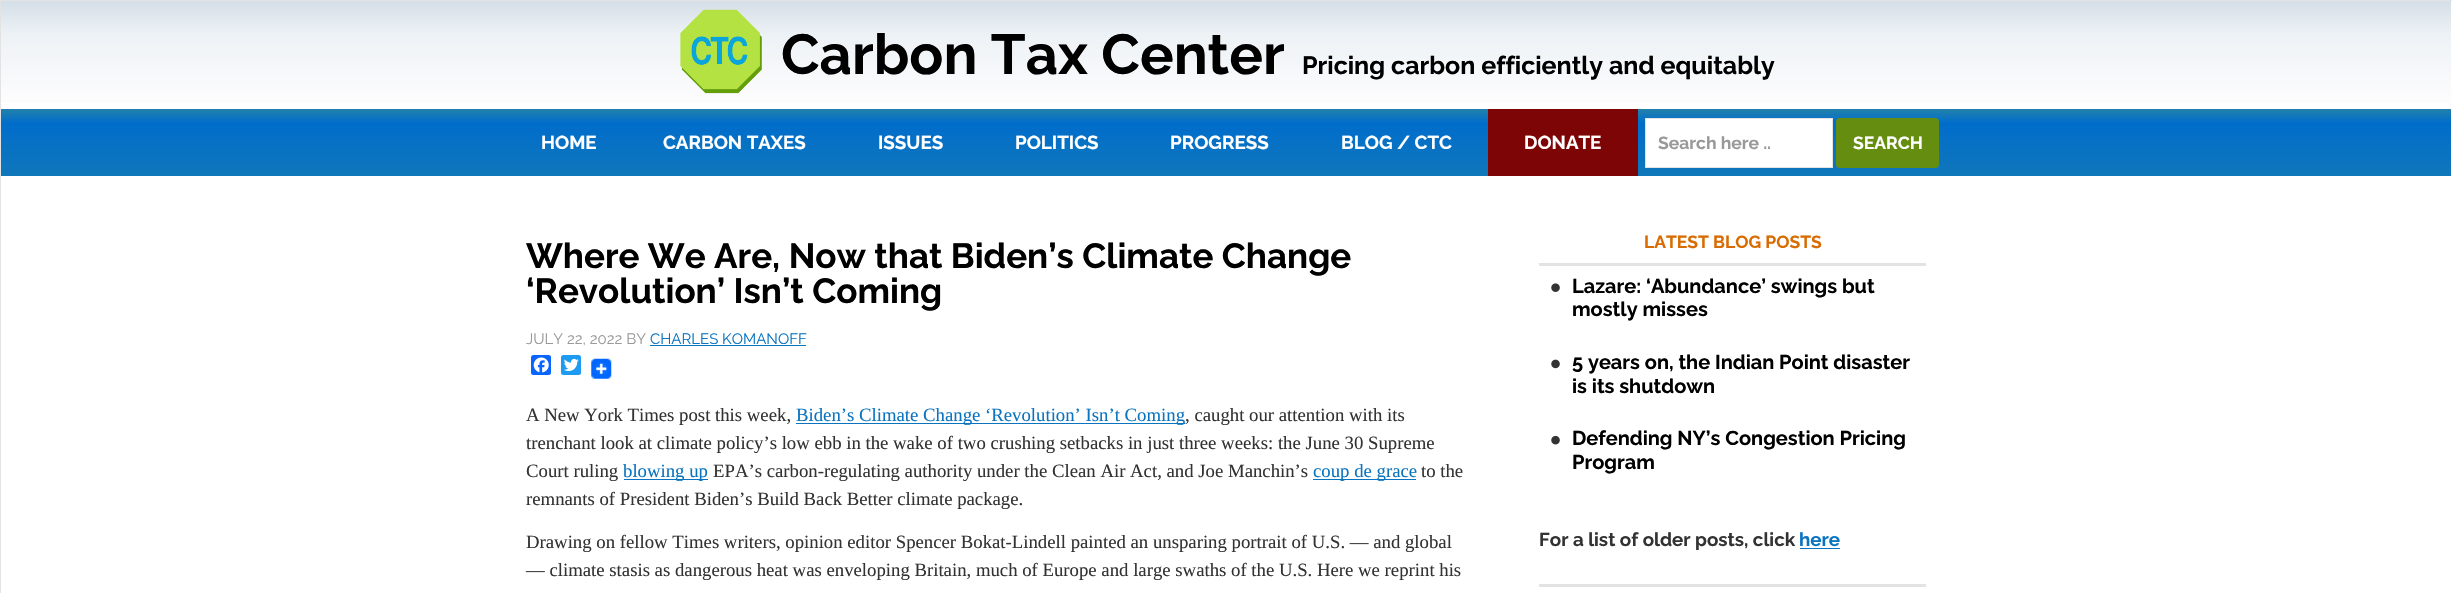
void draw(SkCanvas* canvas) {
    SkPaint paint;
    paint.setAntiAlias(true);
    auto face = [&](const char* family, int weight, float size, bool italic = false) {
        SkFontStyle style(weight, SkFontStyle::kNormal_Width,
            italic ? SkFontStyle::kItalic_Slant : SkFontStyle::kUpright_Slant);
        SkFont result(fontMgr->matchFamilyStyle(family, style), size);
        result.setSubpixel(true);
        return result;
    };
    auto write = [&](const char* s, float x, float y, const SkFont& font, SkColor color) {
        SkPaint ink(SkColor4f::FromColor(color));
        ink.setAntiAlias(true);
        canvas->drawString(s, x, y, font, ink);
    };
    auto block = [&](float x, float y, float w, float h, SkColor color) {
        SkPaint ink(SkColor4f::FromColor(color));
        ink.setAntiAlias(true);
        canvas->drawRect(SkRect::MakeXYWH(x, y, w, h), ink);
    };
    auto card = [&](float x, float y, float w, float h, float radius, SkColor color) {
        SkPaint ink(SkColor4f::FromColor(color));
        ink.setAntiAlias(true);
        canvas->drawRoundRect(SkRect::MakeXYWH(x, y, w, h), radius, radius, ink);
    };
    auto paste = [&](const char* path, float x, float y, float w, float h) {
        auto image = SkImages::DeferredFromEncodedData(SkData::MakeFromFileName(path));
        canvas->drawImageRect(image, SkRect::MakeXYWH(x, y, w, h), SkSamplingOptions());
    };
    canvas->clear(SK_ColorWHITE);
    paint.setStyle(SkPaint::kStroke_Style);
    paint.setStrokeWidth(1);
    paint.setColor(SkColorSetRGB(227, 227, 227));
    canvas->drawRect(SkRect::MakeXYWH(0.5f, 0.5f, 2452, 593), paint);
    paint.setStyle(SkPaint::kFill_Style);
    {
        const SkColor colors[] = {SkColorSetRGB(213, 223, 231), SkColorSetRGB(237, 242, 246), SkColorSetRGB(254, 253, 254)};
        const float stops[] = {0, 0.32f, 1};
        const SkPoint ends[] = {{1226, 1.2f}, {1226, 106}};
        paint.setShader(SkGradientShader::MakeLinear(ends, colors, stops, 3, SkTileMode::kClamp));
        paint.setAlpha(255);
    }
    canvas->drawRect(SkRect::MakeXYWH(1, 1, 2450, 102), paint);
    paste("pic1.png", 680, 9, 82, 85);
    auto kFont1 = face("Raleway", 700, 56.25f);
    write("Carbon Tax Center", 781, 74, kFont1, SK_ColorBLACK);
    auto kFont2 = face("Raleway", 700, 25);
    write("Pricing carbon efficiently and equitably", 1302, 74, kFont2, SK_ColorBLACK);
    {
        const SkColor colors[] = {SkColorSetRGB(32, 127, 173), SkColorSetRGB(0, 109, 203), SkColorSetRGB(16, 119, 187)};
        const float stops[] = {0.02f, 0.21f, 0.99f};
        const SkPoint ends[] = {{1226, 109}, {1226, 176}};
        paint.setShader(SkGradientShader::MakeLinear(ends, colors, stops, 3, SkTileMode::kClamp));
        paint.setAlpha(255);
    }
    canvas->drawRect(SkRect::MakeXYWH(1, 109, 2450, 67), paint);
    auto kFont3 = face("Raleway", 700, 18.75f);
    write("HOME", 541, 149, kFont3, SK_ColorWHITE);
    write("CARBON TAXES", 663, 149, kFont3, SK_ColorWHITE);
    write("ISSUES", 878, 149, kFont3, SK_ColorWHITE);
    write("POLITICS", 1015, 149, kFont3, SK_ColorWHITE);
    write("PROGRESS", 1170, 149, kFont3, SK_ColorWHITE);
    write("BLOG / CTC", 1341, 149, kFont3, SK_ColorWHITE);
    block(1488, 109, 150, 67, SkColorSetRGB(125, 5, 5));
    write("DONATE", 1524, 149, kFont3, SK_ColorWHITE);
    paint.setShader(nullptr);
    paint.setColor(SK_ColorWHITE);
    canvas->drawRect(SkRect::MakeXYWH(1645.5f, 118.5f, 187, 49), paint);
    paint.setStyle(SkPaint::kStroke_Style);
    paint.setColor(SkColorSetRGB(227, 227, 227));
    canvas->drawRect(SkRect::MakeXYWH(1645.5f, 118.5f, 187, 49), paint);
    auto kFont4 = face("Raleway", 700, 17.5f);
    write("Search here ..", 1658, 149, kFont4, SkColorSetRGB(153, 153, 153));
    card(1836, 118, 103, 50, 4, SkColorSetRGB(101, 141, 15));
    write("SEARCH", 1853, 149, kFont4, SK_ColorWHITE);
    auto kFont5 = face("Raleway", 700, 35);
    write("Where We Are, Now that Biden’s Climate Change", 526, 268, kFont5, SK_ColorBLACK);
    write("‘Revolution’ Isn’t Coming", 526, 303, kFont5, SK_ColorBLACK);
    auto kFont6 = face("Raleway", 400, 15);
    write("JULY 22, 2022 BY", 526, 344, kFont6, SkColorSetRGB(153, 153, 153));
    write("CHARLES KOMANOFF", 650, 344, kFont6, SkColorSetRGB(11, 116, 191));
    block(650, 345, 156, 1, SkColorSetRGB(11, 116, 191));
    card(531, 355, 20, 20, 2.5f, SkColorSetRGB(8, 102, 255));
    paste("pic2.png", 533, 357, 16, 16);
    card(561, 355, 20, 20, 2.5f, SkColorSetRGB(29, 155, 240));
    paste("pic3.png", 564, 358, 15, 14);
    paste("pic4.png", 591, 358, 21, 21);
    auto kFont7 = face("Liberation Serif", 400, 18.75f);
    write("A New York Times post this week,", 526, 421, kFont7, SkColorSetRGB(51, 51, 51));
    block(796, 423, 389, 1, SkColorSetRGB(11, 116, 191));
    write("Biden’s Climate Change ‘Revolution’ Isn’t Coming", 796, 421, kFont7, SkColorSetRGB(11, 116, 191));
    write(", caught our attention with its", 1185, 421, kFont7, SkColorSetRGB(51, 51, 51));
    write("trenchant look at climate policy’s low ebb in the wake of two crushing setbacks in just three weeks: the June 30 Supreme", 526, 449, kFont7, SkColorSetRGB(51, 51, 51));
    write("Court ruling", 526, 477, kFont7, SkColorSetRGB(51, 51, 51));
    block(624, 479, 84, 1, SkColorSetRGB(11, 116, 191));
    write("blowing up", 623, 477, kFont7, SkColorSetRGB(11, 116, 191));
    write("EPA’s carbon-regulating authority under the Clean Air Act, and Joe Manchin’s", 713, 477, kFont7, SkColorSetRGB(51, 51, 51));
    block(1313, 479, 103, 1, SkColorSetRGB(11, 116, 191));
    write("coup de grace", 1313, 477, kFont7, SkColorSetRGB(11, 116, 191));
    write("to the", 1421, 477, kFont7, SkColorSetRGB(51, 51, 51));
    write("remnants of President Biden’s Build Back Better climate package.", 526, 505, kFont7, SkColorSetRGB(51, 51, 51));
    write("Drawing on fellow Times writers, opinion editor Spencer Bokat-Lindell painted an unsparing portrait of U.S. — and global", 526, 548, kFont7, SkColorSetRGB(51, 51, 51));
    write("— climate stasis as dangerous heat was enveloping Britain, much of Europe and large swaths of the U.S. Here we reprint his", 526, 576, kFont7, SkColorSetRGB(51, 51, 51));
    block(1539, 263, 387, 3, SkColorSetRGB(227, 227, 227));
    write("LATEST BLOG POSTS", 1644, 248, kFont4, SkColorSetRGB(216, 108, 3));
    paste("pic5.png", 1551, 283, 9, 9);
    auto kFont8 = face("Raleway", 700, 20);
    write("Lazare: ‘Abundance’ swings but", 1572, 293, kFont8, SK_ColorBLACK);
    write("mostly misses", 1572, 316, kFont8, SK_ColorBLACK);
    paste("pic6.png", 1551, 359, 9, 10);
    write("5 years on, the Indian Point disaster", 1572, 369, kFont8, SK_ColorBLACK);
    write("is its shutdown", 1572, 393, kFont8, SK_ColorBLACK);
    paste("pic7.png", 1551, 435, 9, 10);
    write("Defending NY’s Congestion Pricing", 1572, 445, kFont8, SK_ColorBLACK);
    write("Program", 1572, 469, kFont8, SK_ColorBLACK);
    write("For a list of older posts, click", 1539, 546, kFont3, SkColorSetRGB(51, 51, 51));
    write("here", 1799, 546, kFont3, SkColorSetRGB(11, 116, 191));
    block(1800, 548, 40, 1, SkColorSetRGB(11, 116, 191));
    block(1539, 584, 387, 3, SkColorSetRGB(227, 227, 227));
}
